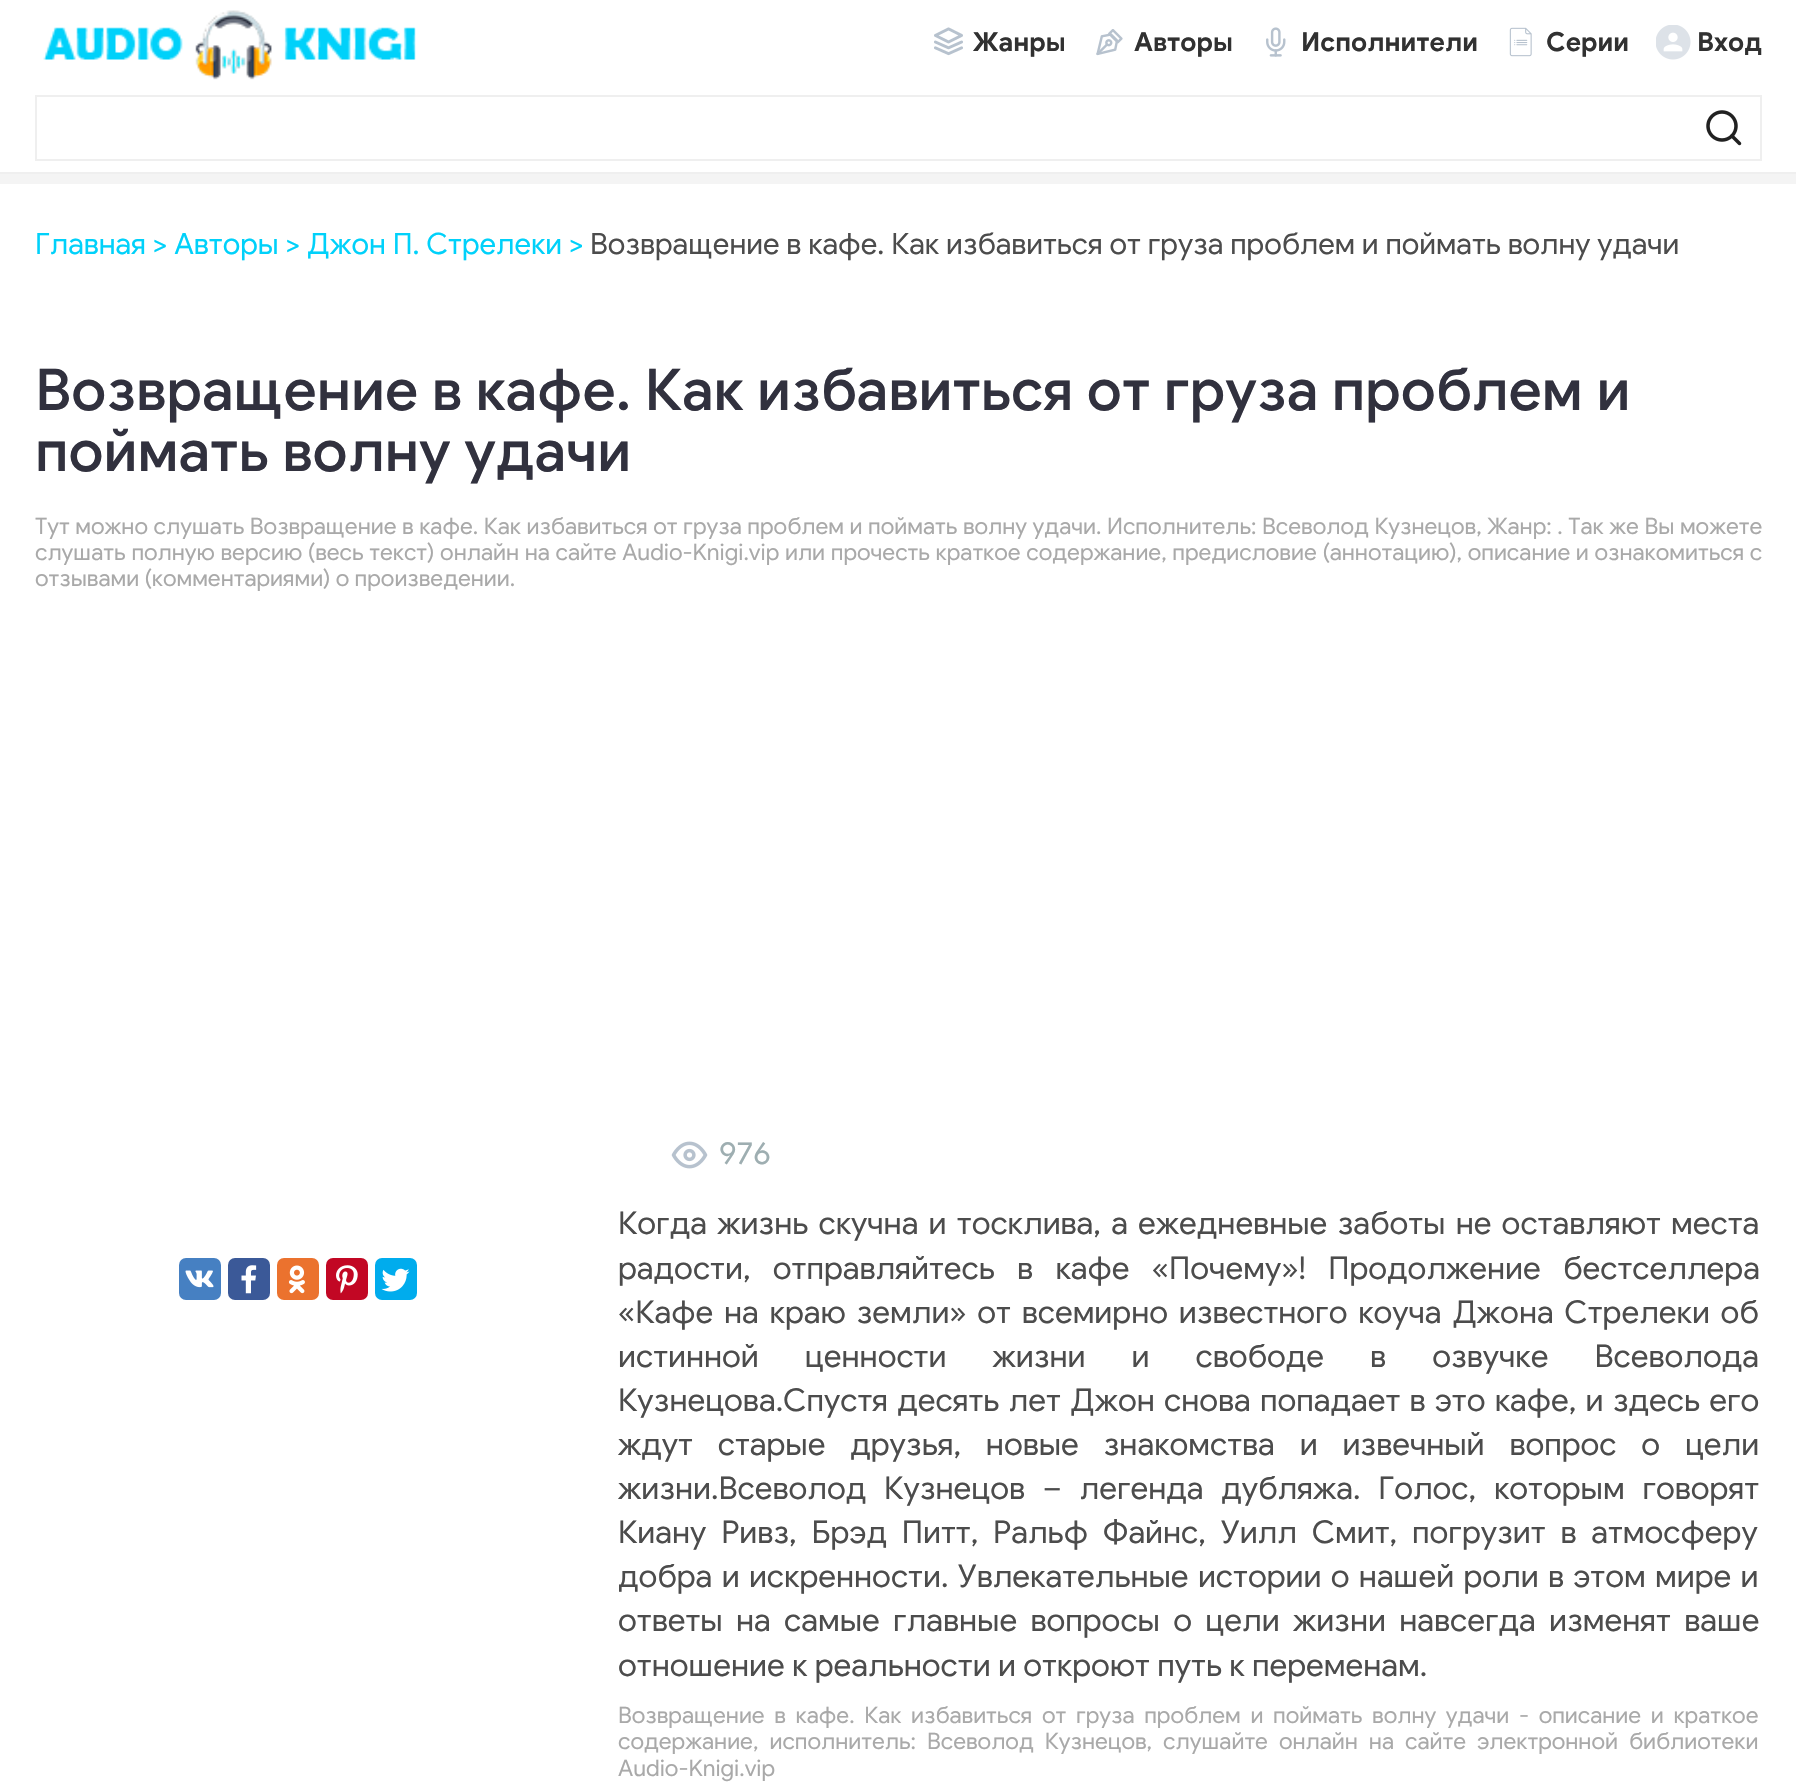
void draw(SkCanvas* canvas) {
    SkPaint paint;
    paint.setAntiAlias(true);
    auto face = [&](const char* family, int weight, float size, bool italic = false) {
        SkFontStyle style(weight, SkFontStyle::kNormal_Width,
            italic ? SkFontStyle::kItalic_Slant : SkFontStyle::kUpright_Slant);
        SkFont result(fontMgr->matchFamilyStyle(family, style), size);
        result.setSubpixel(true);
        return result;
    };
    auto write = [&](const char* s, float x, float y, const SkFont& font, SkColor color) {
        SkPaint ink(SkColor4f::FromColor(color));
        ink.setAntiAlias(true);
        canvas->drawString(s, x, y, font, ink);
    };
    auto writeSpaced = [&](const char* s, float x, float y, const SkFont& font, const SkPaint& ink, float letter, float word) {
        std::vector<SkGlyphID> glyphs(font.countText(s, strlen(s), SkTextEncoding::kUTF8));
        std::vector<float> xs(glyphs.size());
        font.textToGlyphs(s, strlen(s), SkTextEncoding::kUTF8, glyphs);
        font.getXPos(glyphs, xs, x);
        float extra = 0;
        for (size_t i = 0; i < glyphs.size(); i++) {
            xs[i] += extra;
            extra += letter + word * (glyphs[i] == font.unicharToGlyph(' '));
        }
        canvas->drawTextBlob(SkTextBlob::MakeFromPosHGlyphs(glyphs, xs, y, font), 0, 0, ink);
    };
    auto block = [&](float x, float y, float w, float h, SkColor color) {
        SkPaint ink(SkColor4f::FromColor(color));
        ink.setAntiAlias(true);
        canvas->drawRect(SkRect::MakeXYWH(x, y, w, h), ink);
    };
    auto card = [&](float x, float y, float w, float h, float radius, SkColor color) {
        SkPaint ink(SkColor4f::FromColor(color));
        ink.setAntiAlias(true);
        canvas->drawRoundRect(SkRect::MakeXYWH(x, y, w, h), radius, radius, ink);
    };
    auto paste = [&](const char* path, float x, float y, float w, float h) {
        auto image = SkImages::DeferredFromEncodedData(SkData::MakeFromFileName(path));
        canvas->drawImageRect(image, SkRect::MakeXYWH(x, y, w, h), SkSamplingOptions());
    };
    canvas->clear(SkColorSetRGB(244, 244, 244));
    block(0, 0, 1796, 172, SK_ColorWHITE);
    block(0, 172, 1796, 2, SkColorSetRGB(239, 239, 239));
    paste("pic1.png", 43, 10, 373, 70);
    paste("pic2.png", 934, 27, 29, 29);
    auto kFont1 = face("Google Sans", 700, 26.25f);
    write("Жанры", 973, 51, kFont1, SkColorSetRGB(49, 49, 49));
    paste("pic3.png", 1096, 29, 27, 27);
    write("Авторы", 1134, 51, kFont1, SkColorSetRGB(49, 49, 49));
    paste("pic4.png", 1266, 27, 20, 30);
    write("Исполнители", 1301, 51, kFont1, SkColorSetRGB(49, 49, 49));
    paste("pic5.png", 1509, 27, 23, 30);
    write("Серии", 1546, 51, kFont1, SkColorSetRGB(49, 49, 49));
    paste("pic6.png", 1656, 25, 35, 35);
    write("Вход", 1697, 51, kFont1, SkColorSetRGB(49, 49, 49));
    paint.setStyle(SkPaint::kStroke_Style);
    paint.setStrokeWidth(2);
    paint.setColor(SkColorSetRGB(239, 239, 239));
    canvas->drawRect(SkRect::MakeXYWH(36, 96, 1725, 64), paint);
    paste("pic7.png", 1706, 110, 36, 36);
    block(0, 184, 1796, 1608, SK_ColorWHITE);
    auto kFont2 = face("Google Sans", 400, 29.4f);
    write("Главная > Авторы > Джон П. Стрелеки >", 35, 254, kFont2, SkColorSetRGB(0, 209, 250));
    write("Возвращение в кафе. Как избавиться от груза проблем и поймать волну удачи", 590, 254, kFont2, SkColorSetRGB(76, 76, 76));
    auto kFont3 = face("Google Sans", 500, 57.75f);
    write("Возвращение в кафе. Как избавиться от груза проблем и", 35, 410, kFont3, SkColorSetRGB(49, 49, 62));
    write("поймать волну удачи", 35, 471, kFont3, SkColorSetRGB(49, 49, 62));
    auto kFont4 = face("Google Sans", 400, 22.75f);
    paint.setStyle(SkPaint::kFill_Style);
    paint.setColor(SkColorSetRGB(169, 169, 169));
    writeSpaced("Тут можно слушать Возвращение в кафе. Как избавиться от груза проблем и поймать волну удачи. Исполнитель: Всеволод Кузнецов, Жанр: . Так же Вы можете", 35, 534, kFont4, paint, 0, 0.3f);
    writeSpaced("слушать полную версию (весь текст) онлайн на сайте Audio-Knigi.vip или прочесть краткое содержание, предисловие (аннотацию), описание и ознакомиться с", 35, 560, kFont4, paint, 0, 0.4f);
    write("отзывами (комментариями) о произведении.", 35, 586, kFont4, SkColorSetRGB(169, 169, 169));
    card(179, 1258, 42, 42, 7, SkColorSetRGB(70, 128, 194));
    paste("pic8.png", 185, 1270, 29, 18);
    card(228, 1258, 42, 42, 7, SkColorSetRGB(59, 89, 152));
    paste("pic9.png", 241, 1265, 16, 29);
    card(277, 1258, 42, 42, 7, SkColorSetRGB(235, 114, 46));
    paste("pic10.png", 288, 1265, 17, 29);
    card(326, 1258, 42, 42, 7, SkColorSetRGB(194, 7, 36));
    paste("pic11.png", 336, 1265, 22, 29);
    card(375, 1258, 42, 42, 7, SkColorSetRGB(0, 172, 237));
    paste("pic12.png", 381, 1268, 29, 24);
    paste("pic13.png", 671, 1141, 37, 28);
    auto kFont5 = face("Google Sans", 400, 31.5f);
    write("976", 719, 1164, kFont5, SkColorSetRGB(158, 174, 177));
    paint.setColor(SkColorSetRGB(76, 76, 76));
    writeSpaced("Когда жизнь скучна и тосклива, а ежедневные заботы не оставляют места", 618, 1234, kFont5, paint, 0, 2.9f);
    writeSpaced("радости, отправляйтесь в кафе «Почему»! Продолжение бестселлера", 618, 1279, kFont5, paint, 0, 15);
    writeSpaced("«Кафе на краю земли» от всемирно известного коуча Джона Стрелеки об", 618, 1323, kFont5, paint, 0, 3.4f);
    writeSpaced("истинной ценности жизни и свободе в озвучке Всеволода", 618, 1367, kFont5, paint, 0, 38.75f);
    writeSpaced("Кузнецова.Спустя десять лет Джон снова попадает в это кафе, и здесь его", 618, 1411, kFont5, paint, 0, 1.9f);
    writeSpaced("ждут старые друзья, новые знакомства и извечный вопрос о цели", 618, 1455, kFont5, paint, 0, 17.5f);
    writeSpaced("жизни.Всеволод Кузнецов – легенда дубляжа. Голос, которым говорят", 618, 1499, kFont5, paint, 0, 10.5f);
    writeSpaced("Киану Ривз, Брэд Питт, Ральф Файнс, Уилл Смит, погрузит в атмосферу", 618, 1543, kFont5, paint, 0, 7.5f);
    writeSpaced("добра и искренности. Увлекательные истории о нашей роли в этом мире и", 618, 1587, kFont5, paint, 0, 2);
    writeSpaced("ответы на самые главные вопросы о цели жизни навсегда изменят ваше", 618, 1631, kFont5, paint, 0, 6);
    write("отношение к реальности и откроют путь к переменам.", 618, 1676, kFont5, SkColorSetRGB(76, 76, 76));
    paint.setColor(SkColorSetRGB(169, 169, 169));
    writeSpaced("Возвращение в кафе. Как избавиться от груза проблем и поймать волну удачи - описание и краткое", 618, 1723, kFont4, paint, 0, 4.4f);
    writeSpaced("содержание, исполнитель: Всеволод Кузнецов, слушайте онлайн на сайте электронной библиотеки", 618, 1749, kFont4, paint, 0, 5.75f);
    write("Audio-Knigi.vip", 618, 1776, kFont4, SkColorSetRGB(169, 169, 169));
}
